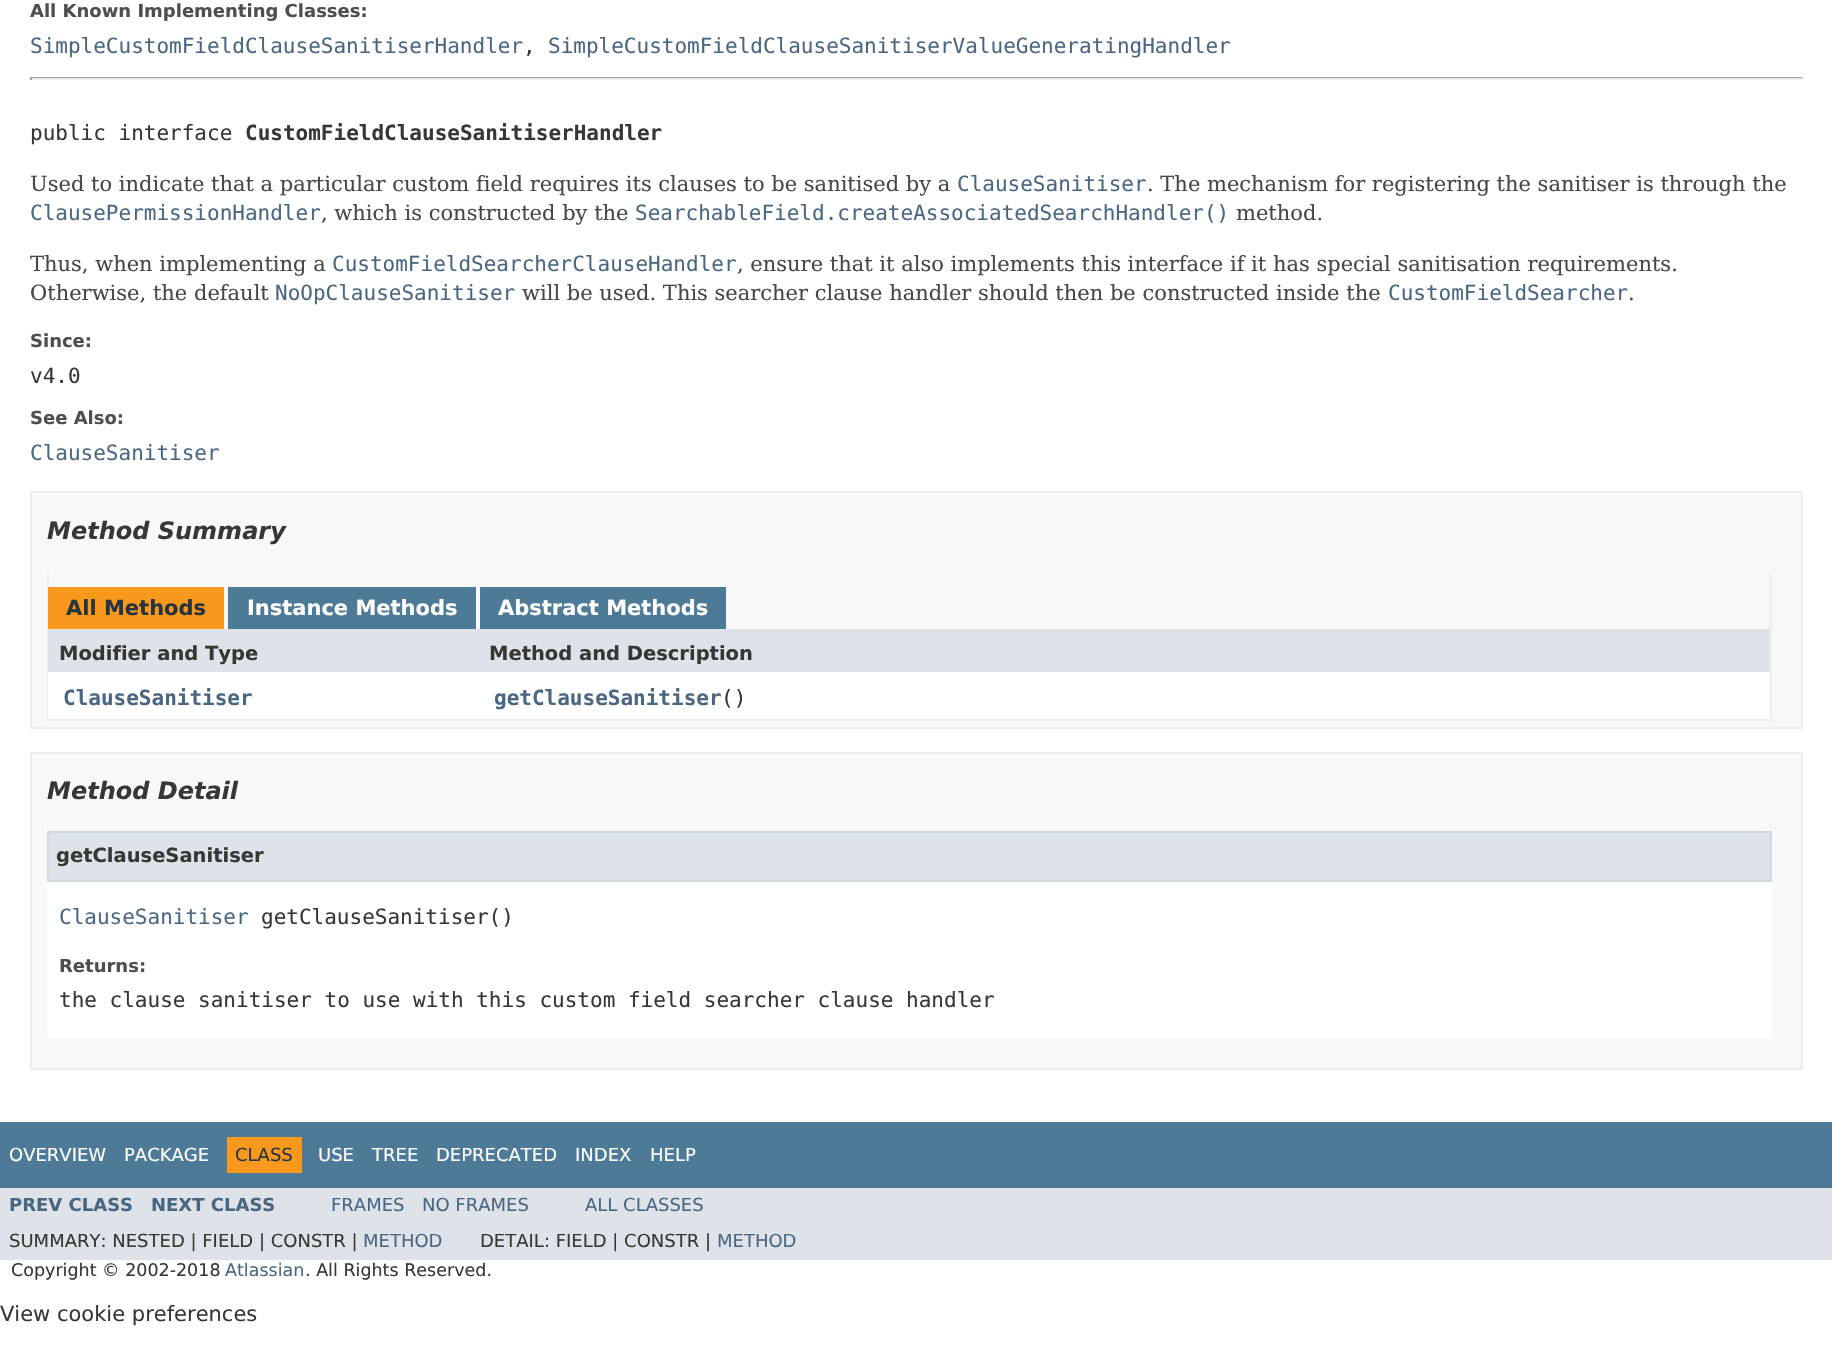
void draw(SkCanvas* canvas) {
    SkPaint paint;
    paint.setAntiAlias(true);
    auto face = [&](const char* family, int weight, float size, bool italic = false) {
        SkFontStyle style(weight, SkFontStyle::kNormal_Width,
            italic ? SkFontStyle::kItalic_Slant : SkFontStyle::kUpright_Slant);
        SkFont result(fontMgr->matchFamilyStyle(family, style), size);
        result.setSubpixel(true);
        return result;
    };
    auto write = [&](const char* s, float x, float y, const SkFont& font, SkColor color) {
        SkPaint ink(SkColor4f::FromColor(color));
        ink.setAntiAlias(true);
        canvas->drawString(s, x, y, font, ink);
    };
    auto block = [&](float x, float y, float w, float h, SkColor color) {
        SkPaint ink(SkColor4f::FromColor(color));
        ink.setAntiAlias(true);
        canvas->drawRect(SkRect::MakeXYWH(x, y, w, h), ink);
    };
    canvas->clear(SK_ColorWHITE);
    auto kFont1 = face("DejaVu Sans", 700, 18);
    write("All Known Implementing Classes:", 30, 17, kFont1, SkColorSetRGB(78, 78, 78));
    auto kFont2 = face("DejaVu Sans Mono", 400, 21);
    write("SimpleCustomFieldClauseSanitiserHandler", 30, 53, kFont2, SkColorSetRGB(74, 103, 130));
    write(",", 523, 53, kFont2, SkColorSetRGB(53, 56, 51));
    write("SimpleCustomFieldClauseSanitiserValueGeneratingHandler", 548, 53, kFont2, SkColorSetRGB(74, 103, 130));
    block(30, 77, 1773, 1, SkColorSetRGB(159, 159, 159));
    block(1802, 77, 2, 3, SkColorSetRGB(238, 238, 238));
    block(30, 78, 1773, 2, SkColorSetRGB(238, 238, 238));
    block(30, 77, 2, 3, SkColorSetRGB(159, 159, 159));
    write("public interface", 30, 140, kFont2, SkColorSetRGB(53, 56, 51));
    auto kFont3 = face("DejaVu Sans Mono", 700, 21);
    write("CustomFieldClauseSanitiserHandler", 245, 140, kFont3, SkColorSetRGB(53, 56, 51));
    auto kFont4 = face("DejaVu Serif", 400, 21);
    write("Used to indicate that a particular custom field requires its clauses to be sanitised by a", 30, 191, kFont4, SkColorSetRGB(71, 71, 71));
    write("ClauseSanitiser", 957, 191, kFont2, SkColorSetRGB(74, 103, 130));
    write(". The mechanism for registering the sanitiser is through the", 1147, 191, kFont4, SkColorSetRGB(71, 71, 71));
    write("ClausePermissionHandler", 30, 220, kFont2, SkColorSetRGB(74, 103, 130));
    write(", which is constructed by the", 321, 220, kFont4, SkColorSetRGB(71, 71, 71));
    write("SearchableField.createAssociatedSearchHandler()", 635, 220, kFont2, SkColorSetRGB(74, 103, 130));
    write("method.", 1236, 220, kFont4, SkColorSetRGB(71, 71, 71));
    write("Thus, when implementing a", 30, 271, kFont4, SkColorSetRGB(71, 71, 71));
    write("CustomFieldSearcherClauseHandler", 332, 271, kFont2, SkColorSetRGB(74, 103, 130));
    write(", ensure that it also implements this interface if it has special sanitisation requirements.", 737, 271, kFont4, SkColorSetRGB(71, 71, 71));
    write("Otherwise, the default", 30, 300, kFont4, SkColorSetRGB(71, 71, 71));
    write("NoOpClauseSanitiser", 275, 300, kFont2, SkColorSetRGB(74, 103, 130));
    write("will be used. This searcher clause handler should then be constructed inside the", 522, 300, kFont4, SkColorSetRGB(71, 71, 71));
    write("CustomFieldSearcher", 1388, 300, kFont2, SkColorSetRGB(74, 103, 130));
    write(".", 1628, 300, kFont4, SkColorSetRGB(71, 71, 71));
    write("Since:", 30, 347, kFont1, SkColorSetRGB(78, 78, 78));
    write("v4.0", 30, 383, kFont2, SkColorSetRGB(53, 56, 51));
    write("See Also:", 30, 424, kFont1, SkColorSetRGB(78, 78, 78));
    write("ClauseSanitiser", 30, 460, kFont2, SkColorSetRGB(74, 103, 130));
    paint.setColor(SkColorSetRGB(248, 248, 248));
    canvas->drawRect(SkRect::MakeXYWH(31, 492, 1771, 236), paint);
    paint.setStyle(SkPaint::kStroke_Style);
    paint.setStrokeWidth(2);
    paint.setColor(SkColorSetRGB(237, 237, 237));
    canvas->drawRect(SkRect::MakeXYWH(31, 492, 1771, 236), paint);
    auto kFont5 = face("DejaVu Sans", 700, 24, true);
    write("Method Summary", 47, 539, kFont5, SkColorSetRGB(53, 56, 51));
    block(1770, 572, 2, 148, SkColorSetRGB(238, 238, 238));
    block(47, 719, 1725, 2, SkColorSetRGB(238, 238, 238));
    block(47, 572, 2, 148, SkColorSetRGB(238, 238, 238));
    block(48, 587, 176, 42, SkColorSetRGB(248, 152, 29));
    auto kFont6 = face("DejaVu Sans", 700, 21);
    write("All Methods", 66, 615, kFont6, SkColorSetRGB(37, 52, 65));
    block(228, 587, 248, 42, SkColorSetRGB(77, 122, 151));
    write("Instance Methods", 247, 615, kFont6, SK_ColorWHITE);
    block(480, 587, 246, 42, SkColorSetRGB(77, 122, 151));
    write("Abstract Methods", 498, 615, kFont6, SK_ColorWHITE);
    block(48, 629, 1722, 43, SkColorSetRGB(222, 227, 233));
    auto kFont7 = face("DejaVu Sans", 700, 19.5f);
    write("Modifier and Type", 59, 660, kFont7, SkColorSetRGB(53, 56, 51));
    write("Method and Description", 489, 660, kFont7, SkColorSetRGB(53, 56, 51));
    block(48, 672, 1722, 47, SK_ColorWHITE);
    write("ClauseSanitiser", 63, 705, kFont3, SkColorSetRGB(74, 103, 130));
    write("getClauseSanitiser", 494, 705, kFont3, SkColorSetRGB(74, 103, 130));
    write("()", 721, 705, kFont2, SkColorSetRGB(53, 56, 51));
    paint.setStyle(SkPaint::kFill_Style);
    paint.setColor(SkColorSetRGB(248, 248, 248));
    canvas->drawRect(SkRect::MakeXYWH(31, 753, 1771, 316), paint);
    paint.setStyle(SkPaint::kStroke_Style);
    paint.setColor(SkColorSetRGB(237, 237, 237));
    canvas->drawRect(SkRect::MakeXYWH(31, 753, 1771, 316), paint);
    write("Method Detail", 47, 799, kFont5, SkColorSetRGB(53, 56, 51));
    block(47, 882, 1725, 156, SK_ColorWHITE);
    paint.setStyle(SkPaint::kFill_Style);
    paint.setColor(SkColorSetRGB(222, 227, 233));
    canvas->drawRect(SkRect::MakeXYWH(48, 832, 1723, 49), paint);
    paint.setStyle(SkPaint::kStroke_Style);
    paint.setColor(SkColorSetRGB(208, 217, 224));
    canvas->drawRect(SkRect::MakeXYWH(48, 832, 1723, 49), paint);
    write("getClauseSanitiser", 56, 862, kFont7, SkColorSetRGB(53, 56, 51));
    write("ClauseSanitiser", 59, 924, kFont2, SkColorSetRGB(74, 103, 130));
    write("getClauseSanitiser()", 261, 924, kFont2, SkColorSetRGB(53, 56, 51));
    write("Returns:", 59, 972, kFont1, SkColorSetRGB(78, 78, 78));
    write("the clause sanitiser to use with this custom field searcher clause handler", 59, 1007, kFont2, SkColorSetRGB(53, 56, 51));
    block(0, 1122, 1832, 66, SkColorSetRGB(77, 122, 151));
    auto kFont8 = face("DejaVu Sans", 400, 18);
    write("OVERVIEW", 9, 1161, kFont8, SK_ColorWHITE);
    write("PACKAGE", 124, 1161, kFont8, SK_ColorWHITE);
    block(227, 1137, 75, 36, SkColorSetRGB(248, 152, 29));
    write("CLASS", 235, 1161, kFont8, SkColorSetRGB(37, 52, 65));
    write("USE", 318, 1161, kFont8, SK_ColorWHITE);
    write("TREE", 372, 1161, kFont8, SK_ColorWHITE);
    write("DEPRECATED", 436, 1161, kFont8, SK_ColorWHITE);
    write("INDEX", 575, 1161, kFont8, SK_ColorWHITE);
    write("HELP", 650, 1161, kFont8, SK_ColorWHITE);
    block(0, 1188, 1832, 72, SkColorSetRGB(222, 227, 233));
    write("PREV CLASS", 9, 1211, kFont1, SkColorSetRGB(74, 103, 130));
    write("NEXT CLASS", 151, 1211, kFont1, SkColorSetRGB(74, 103, 130));
    write("FRAMES", 331, 1211, kFont8, SkColorSetRGB(74, 103, 130));
    write("NO FRAMES", 422, 1211, kFont8, SkColorSetRGB(74, 103, 130));
    write("ALL CLASSES", 585, 1211, kFont8, SkColorSetRGB(74, 103, 130));
    write("SUMMARY: NESTED | FIELD | CONSTR |", 9, 1247, kFont8, SkColorSetRGB(53, 56, 51));
    write("METHOD", 363, 1247, kFont8, SkColorSetRGB(74, 103, 130));
    write("DETAIL: FIELD | CONSTR |", 480, 1247, kFont8, SkColorSetRGB(53, 56, 51));
    write("METHOD", 717, 1247, kFont8, SkColorSetRGB(74, 103, 130));
    auto kFont9 = face("DejaVu Sans", 400, 17.5f);
    write("Copyright © 2002-2018", 11, 1276, kFont9, SkColorSetRGB(53, 56, 51));
    write("Atlassian", 225, 1276, kFont9, SkColorSetRGB(74, 103, 130));
    write(". All Rights Reserved.", 305, 1276, kFont9, SkColorSetRGB(53, 56, 51));
    auto kFont10 = face("DejaVu Sans", 400, 21);
    write("View cookie preferences", 0, 1321, kFont10, SkColorSetRGB(53, 56, 51));
}
